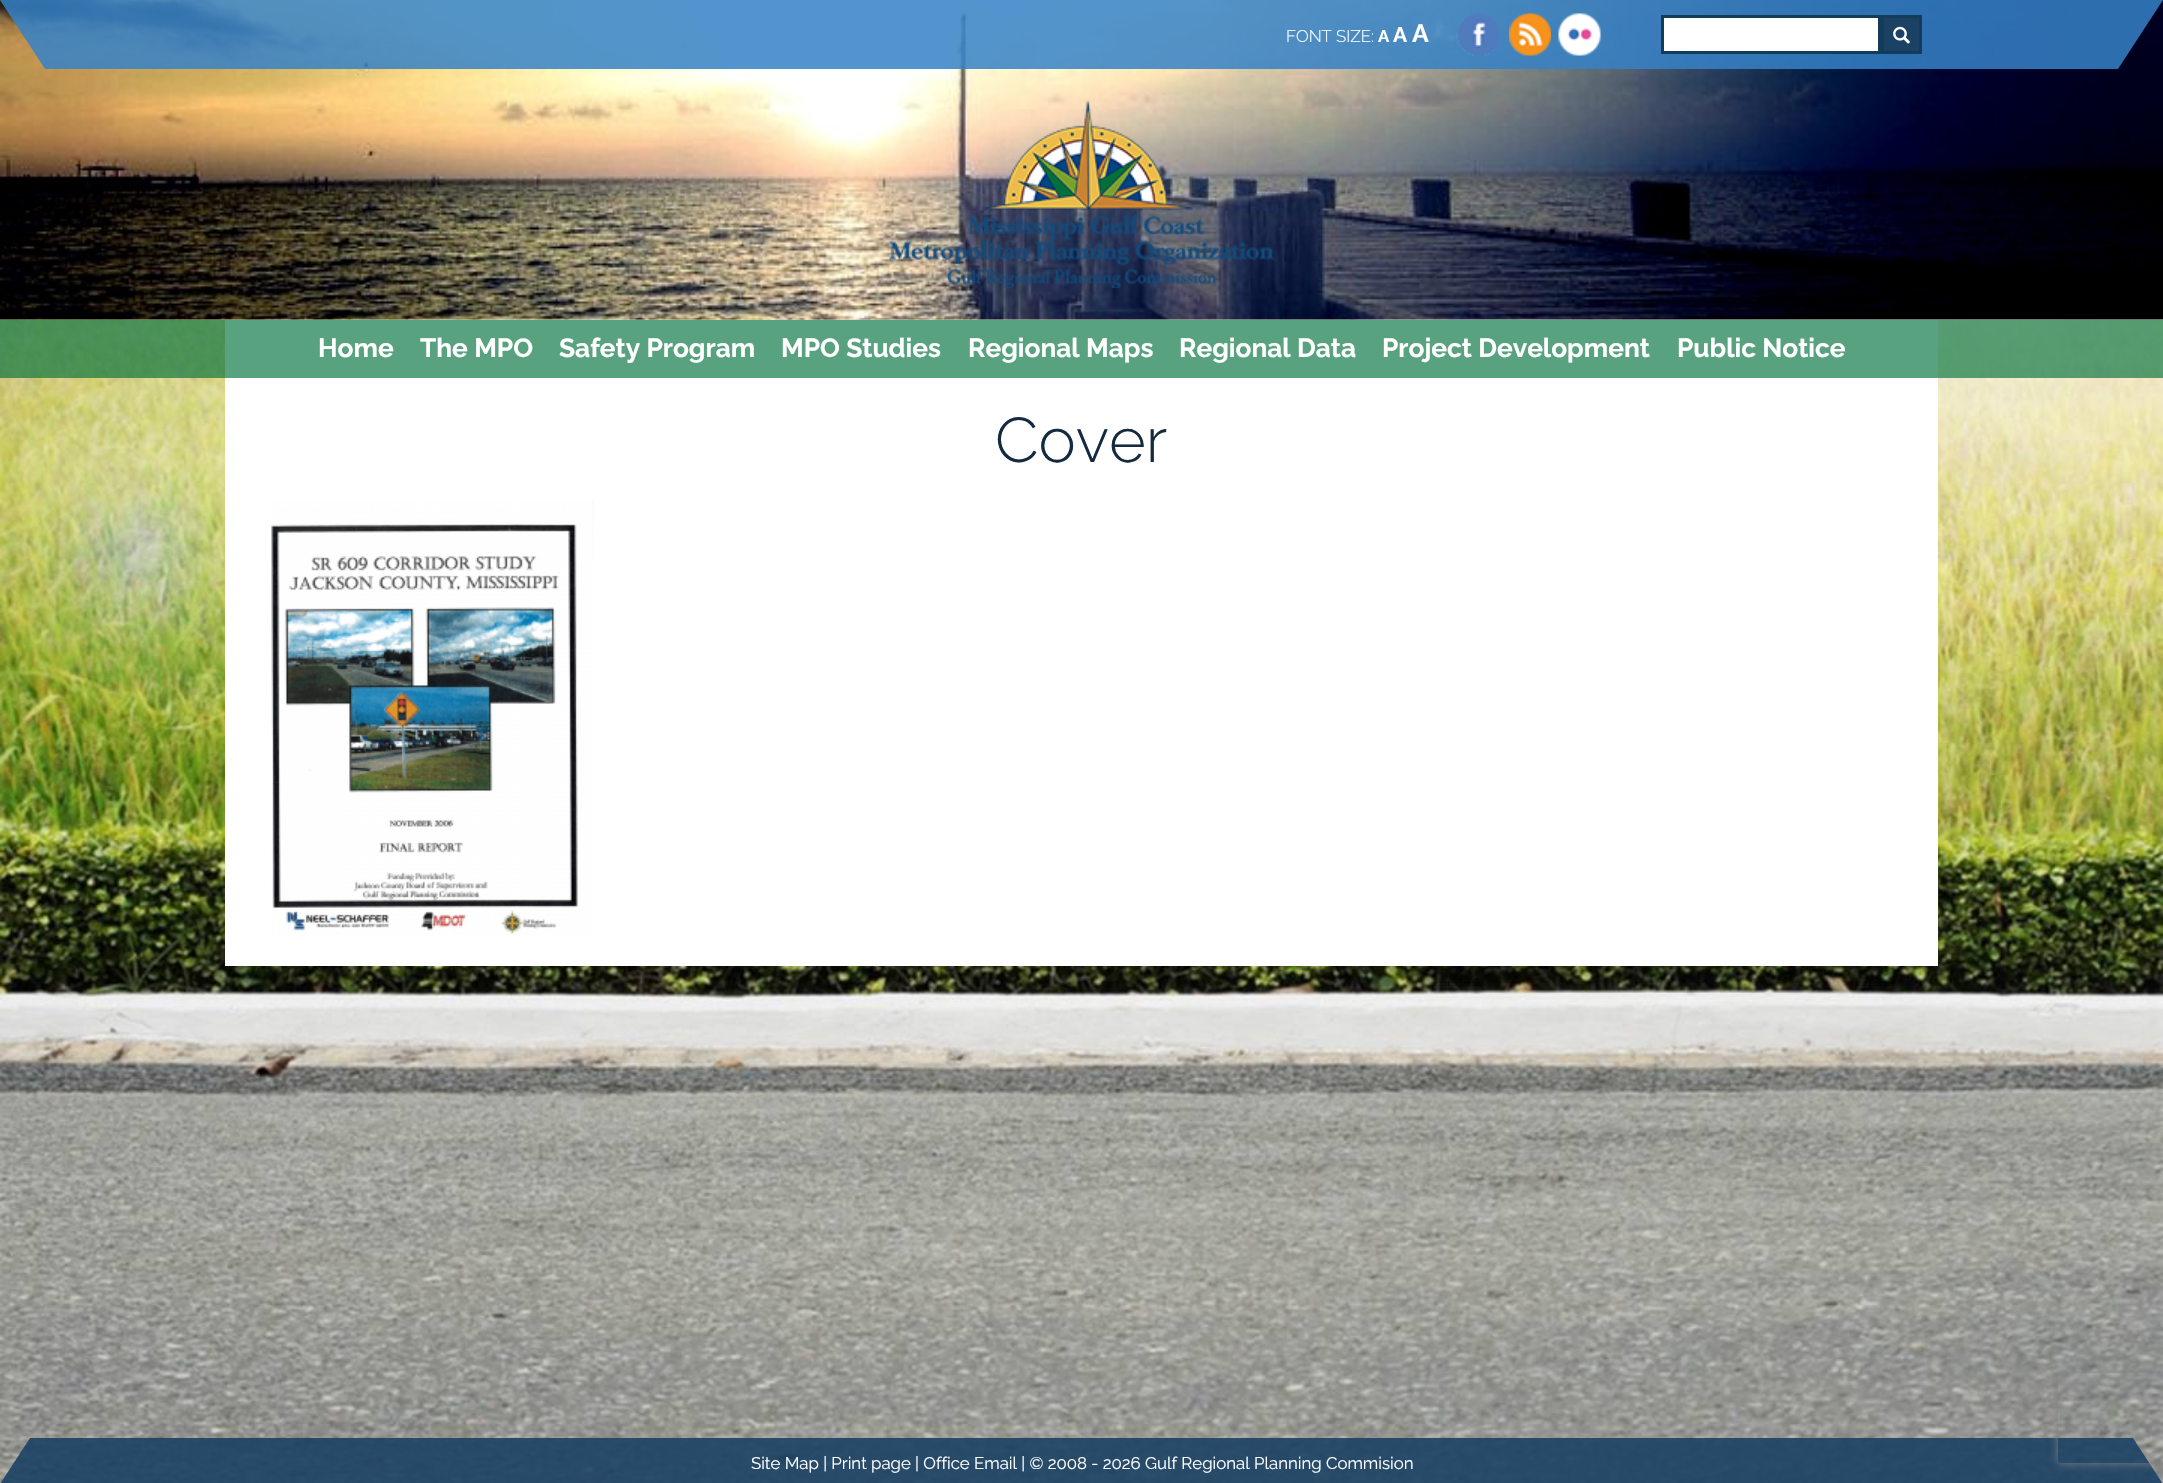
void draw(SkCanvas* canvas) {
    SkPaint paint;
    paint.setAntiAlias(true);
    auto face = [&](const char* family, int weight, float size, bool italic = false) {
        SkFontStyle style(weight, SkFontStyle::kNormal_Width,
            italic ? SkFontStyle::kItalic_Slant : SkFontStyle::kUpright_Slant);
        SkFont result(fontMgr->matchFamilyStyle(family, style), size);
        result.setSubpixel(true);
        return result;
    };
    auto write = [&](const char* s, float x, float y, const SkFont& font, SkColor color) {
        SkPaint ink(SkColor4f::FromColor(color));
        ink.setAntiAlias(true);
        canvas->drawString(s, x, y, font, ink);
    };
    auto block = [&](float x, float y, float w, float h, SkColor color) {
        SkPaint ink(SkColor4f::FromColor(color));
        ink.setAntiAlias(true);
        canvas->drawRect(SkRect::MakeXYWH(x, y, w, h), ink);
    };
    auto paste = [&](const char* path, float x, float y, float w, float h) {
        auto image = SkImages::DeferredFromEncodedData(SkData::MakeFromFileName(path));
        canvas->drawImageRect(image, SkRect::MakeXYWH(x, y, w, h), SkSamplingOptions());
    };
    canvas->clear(SK_ColorWHITE);
    paste("pic1.png", 0, 319, 2163, 1164);
    paste("pic2.png", 0, 0, 2163, 320);
    paint.setColor(SkColorSetARGB(217, 53, 129, 199));
    canvas->drawPath(SkPathBuilder().moveTo(0, 0).lineTo(2163, 0).lineTo(2118, 69).lineTo(45, 69).close().detach(), paint);
    auto kFont1 = face("Raleway", 300, 16.8f);
    write("FONT SIZE:", 1286, 42, kFont1, SK_ColorWHITE);
    auto kFont2 = face("Raleway", 700, 16.8f);
    write("A", 1378, 42, kFont2, SK_ColorWHITE);
    auto kFont3 = face("Raleway", 700, 21);
    write("A", 1393, 42, kFont3, SK_ColorWHITE);
    auto kFont4 = face("Raleway", 700, 25);
    write("A", 1412, 42, kFont4, SK_ColorWHITE);
    paste("pic3.png", 1458, 13, 42, 43);
    paste("pic4.png", 1509, 13, 42, 43);
    paste("pic5.png", 1558, 13, 43, 43);
    paint.setColor(SK_ColorWHITE);
    canvas->drawRect(SkRect::MakeXYWH(1662.5f, 16.5f, 217, 36), paint);
    paint.setStyle(SkPaint::kStroke_Style);
    paint.setStrokeWidth(3);
    paint.setColor(SkColorSetRGB(19, 59, 90));
    canvas->drawRect(SkRect::MakeXYWH(1662.5f, 16.5f, 217, 36), paint);
    paint.setStyle(SkPaint::kFill_Style);
    paint.setColor(SkColorSetRGB(27, 65, 100));
    canvas->drawRect(SkRect::MakeXYWH(1882.5f, 16.5f, 38, 36), paint);
    paint.setStyle(SkPaint::kStroke_Style);
    paint.setColor(SkColorSetRGB(19, 59, 90));
    canvas->drawRect(SkRect::MakeXYWH(1882.5f, 16.5f, 38, 36), paint);
    paste("pic6.png", 1893, 26, 17, 18);
    paste("pic7.png", 889, 100, 385, 188);
    block(225, 320, 1713, 646, SK_ColorWHITE);
    block(0, 320, 2163, 58, SkColorSetARGB(166, 0, 112, 60));
    auto kFont5 = face("Raleway", 700, 26.25f);
    write("Home", 318, 357, kFont5, SK_ColorWHITE);
    write("The MPO", 420, 357, kFont5, SK_ColorWHITE);
    write("Safety Program", 559, 357, kFont5, SK_ColorWHITE);
    write("MPO Studies", 781, 357, kFont5, SK_ColorWHITE);
    write("Regional Maps", 968, 357, kFont5, SK_ColorWHITE);
    write("Regional Data", 1179, 357, kFont5, SK_ColorWHITE);
    write("Project Development", 1382, 357, kFont5, SK_ColorWHITE);
    write("Public Notice", 1677, 357, kFont5, SK_ColorWHITE);
    auto kFont6 = face("Raleway", 300, 63);
    write("Cover", 995, 462, kFont6, SkColorSetRGB(19, 42, 63));
    paste("pic8.png", 271, 501, 323, 434);
    paint.setStyle(SkPaint::kFill_Style);
    paint.setColor(SkColorSetARGB(230, 27, 65, 100));
    canvas->drawPath(SkPathBuilder().moveTo(2163, 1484).lineTo(0, 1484).lineTo(30, 1438).lineTo(2133, 1438).close().detach(), paint);
    auto kFont7 = face("Raleway", 400, 16.8f);
    write("Site Map | Print page | Office Email | © 2008 - 2026 Gulf Regional Planning Commision", 751, 1469, kFont7, SK_ColorWHITE);
    canvas->save();
    canvas->clipPath(SkPathBuilder(SkPathFillType::kEvenOdd).moveTo(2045, 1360).lineTo(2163, 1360).lineTo(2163, 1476).lineTo(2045, 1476).close().moveTo(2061, 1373).lineTo(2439, 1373).cubicTo(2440.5f, 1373, 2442, 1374.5f, 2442, 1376).lineTo(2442, 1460).cubicTo(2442, 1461.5f, 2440.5f, 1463, 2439, 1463).lineTo(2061, 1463).cubicTo(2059.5f, 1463, 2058, 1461.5f, 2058, 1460).lineTo(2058, 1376).cubicTo(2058, 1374.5f, 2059.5f, 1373, 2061, 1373).close().detach(), true);
    paint.setColor(SkColorSetRGB(128, 128, 128));
    paint.setMaskFilter(SkMaskFilter::MakeBlur(kNormal_SkBlurStyle, 4));
    canvas->drawRoundRect(SkRect::MakeXYWH(2058, 1373, 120, 90), 3, 3, paint);
    paint.setMaskFilter(nullptr);
    canvas->restore();
}
